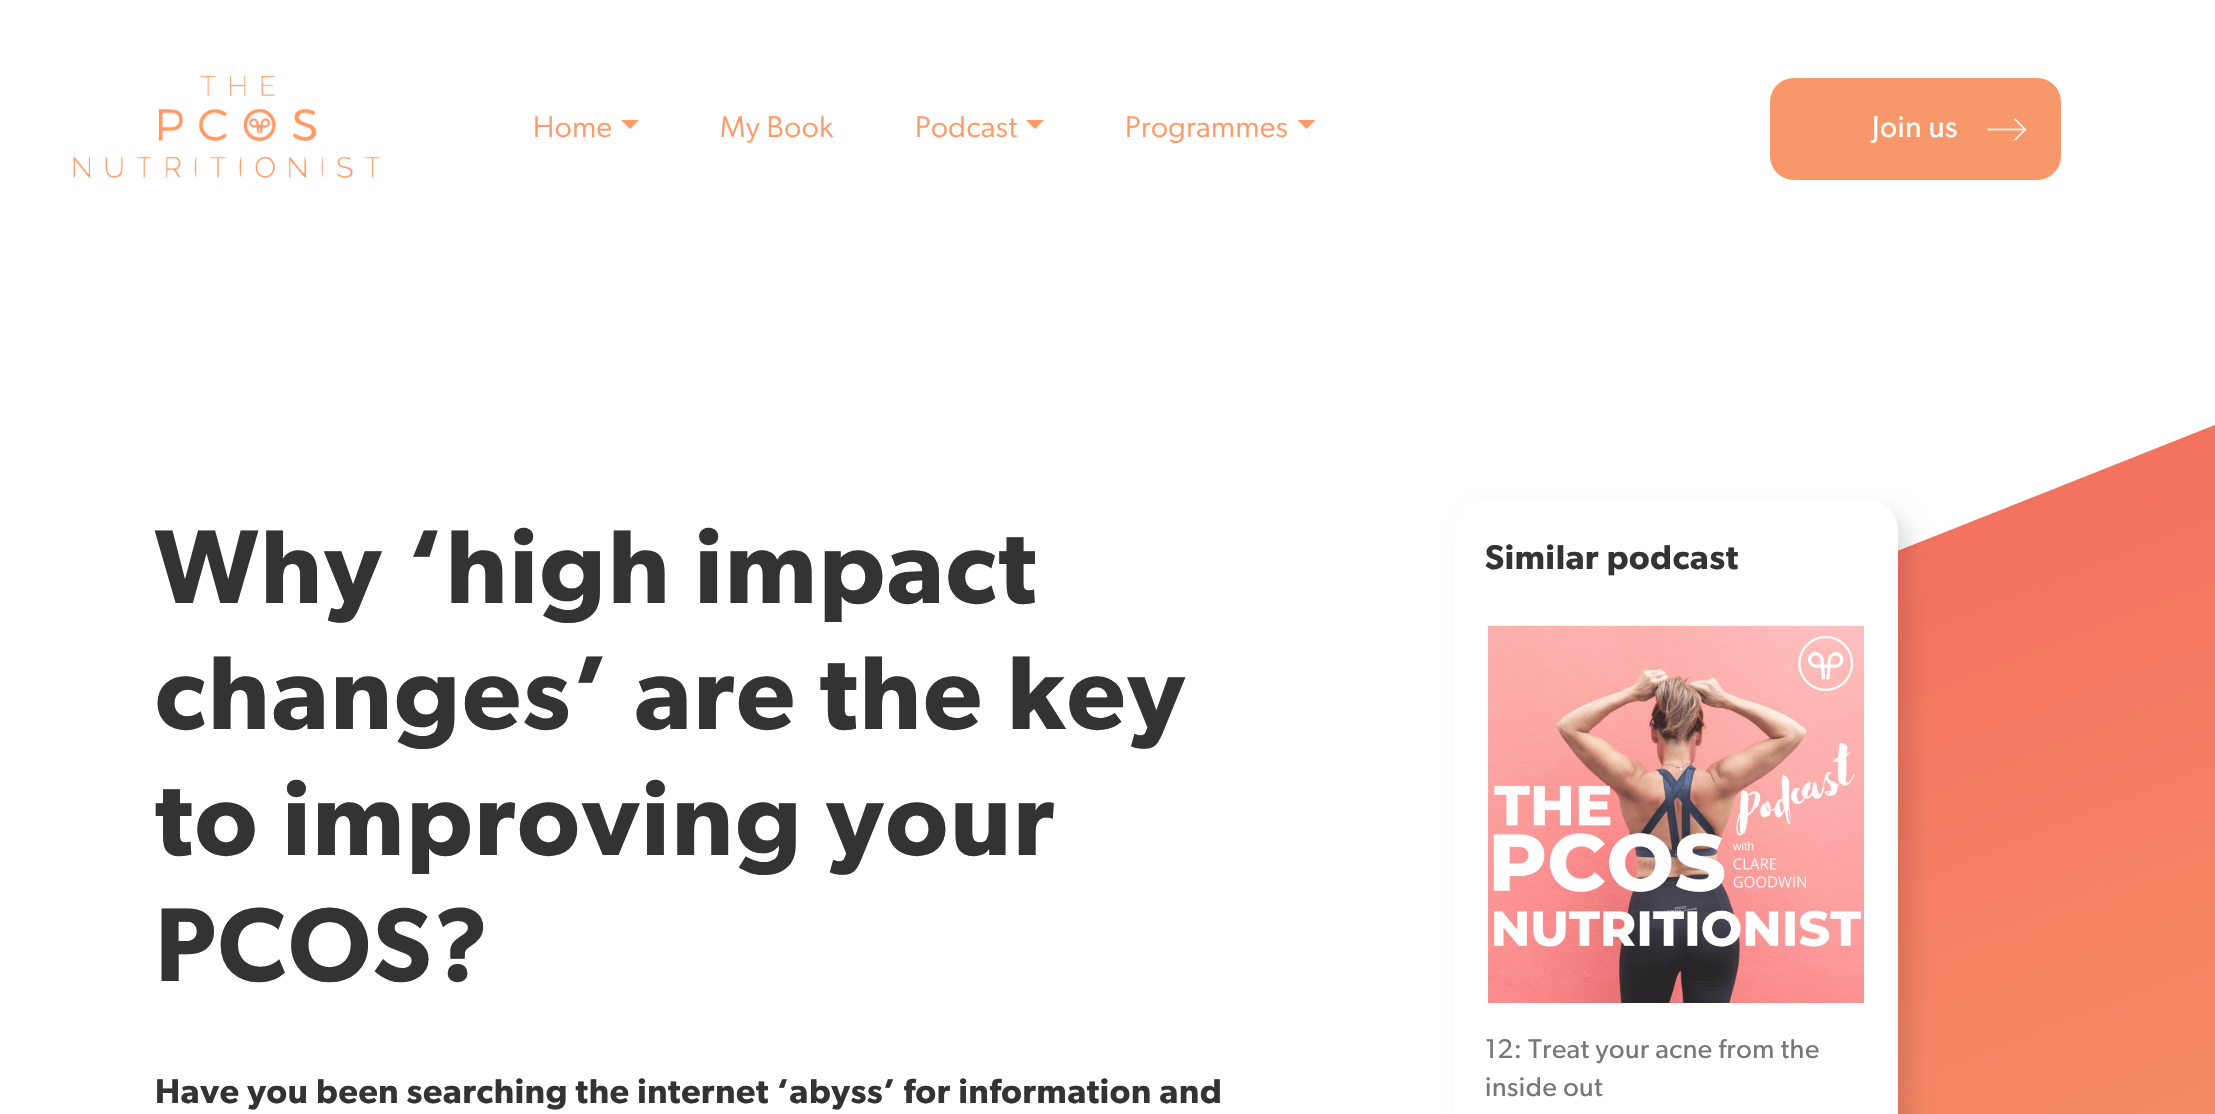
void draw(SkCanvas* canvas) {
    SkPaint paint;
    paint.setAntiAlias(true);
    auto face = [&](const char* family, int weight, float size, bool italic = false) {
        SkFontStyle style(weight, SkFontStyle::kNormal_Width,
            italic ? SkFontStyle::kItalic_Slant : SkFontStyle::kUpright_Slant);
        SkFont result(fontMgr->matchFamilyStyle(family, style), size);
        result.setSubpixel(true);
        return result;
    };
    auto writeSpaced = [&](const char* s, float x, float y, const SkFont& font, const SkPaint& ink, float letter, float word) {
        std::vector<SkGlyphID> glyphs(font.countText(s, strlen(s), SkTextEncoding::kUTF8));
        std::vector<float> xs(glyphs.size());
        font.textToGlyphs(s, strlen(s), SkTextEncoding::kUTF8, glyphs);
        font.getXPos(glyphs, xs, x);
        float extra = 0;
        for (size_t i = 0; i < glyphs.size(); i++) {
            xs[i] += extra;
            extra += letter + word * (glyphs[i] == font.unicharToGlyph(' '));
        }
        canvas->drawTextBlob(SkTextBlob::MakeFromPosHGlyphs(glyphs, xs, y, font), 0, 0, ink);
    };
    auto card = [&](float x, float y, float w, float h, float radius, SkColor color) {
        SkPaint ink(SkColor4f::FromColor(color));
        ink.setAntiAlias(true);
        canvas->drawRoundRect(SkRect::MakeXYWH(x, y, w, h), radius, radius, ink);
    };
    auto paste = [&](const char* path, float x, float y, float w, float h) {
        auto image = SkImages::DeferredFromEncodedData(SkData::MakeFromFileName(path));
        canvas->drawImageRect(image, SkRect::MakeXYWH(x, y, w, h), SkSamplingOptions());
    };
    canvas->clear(SK_ColorWHITE);
    paste("pic1.png", 73, 75, 308, 104);
    auto kFont1 = face("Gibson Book", 400, 30);
    paint.setColor(SkColorSetRGB(255, 153, 102));
    writeSpaced("Home", 533, 137, kFont1, paint, 0.5f, 0);
    canvas->drawPath(SkPathBuilder().moveTo(621, 120).lineTo(639, 120).lineTo(630, 129).close().detach(), paint);
    writeSpaced("My Book", 720, 137, kFont1, paint, 0.5f, 0);
    writeSpaced("Podcast", 915, 137, kFont1, paint, 0.5f, 0);
    canvas->drawPath(SkPathBuilder().moveTo(1026, 120).lineTo(1044, 120).lineTo(1035, 129).close().detach(), paint);
    writeSpaced("Programmes", 1125, 137, kFont1, paint, 0.5f, 0);
    canvas->drawPath(SkPathBuilder().moveTo(1297.5f, 120).lineTo(1315.5f, 120).lineTo(1306.5f, 129).close().detach(), paint);
    card(1770, 78, 291, 102, 24, SkColorSetRGB(248, 151, 106));
    paste("pic2.png", 1987, 118, 40, 23);
    auto kFont2 = face("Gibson", 400, 30);
    paint.setColor(SK_ColorWHITE);
    writeSpaced("Join us", 1872, 137, kFont2, paint, 0.5f, 0);
    auto kFont3 = face("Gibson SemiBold", 600, 105);
    paint.setColor(SkColorSetRGB(51, 51, 51));
    writeSpaced("Why ‘high impact", 155, 603, kFont3, paint, 2.1f, 0);
    writeSpaced("changes’ are the key", 155, 729, kFont3, paint, 2.1f, 0);
    writeSpaced("to improving your", 155, 855, kFont3, paint, 2.1f, 0);
    writeSpaced("PCOS?", 155, 981, kFont3, paint, 2.1f, 0);
    auto kFont4 = face("Gibson SemiBold", 600, 34.5f);
    writeSpaced("Have you been searching the internet ‘abyss’ for information and", 155, 1103, kFont4, paint, 0.7f, 0);
    paste("pic3.png", 1462, 424, 753, 690);
    paint.setColor(SkColorSetARGB(31, 0, 0, 0));
    paint.setMaskFilter(SkMaskFilter::MakeBlur(kNormal_SkBlurStyle, 11));
    canvas->drawRoundRect(SkRect::MakeXYWH(1467, 512, 443, 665), 30, 30, paint);
    paint.setMaskFilter(nullptr);
    card(1455, 500, 443, 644, 30, SK_ColorWHITE);
    paint.setColor(SkColorSetRGB(51, 51, 51));
    writeSpaced("Similar podcast", 1485, 569, kFont4, paint, 0.7f, 0);
    paste("pic4.png", 1485, 623, 381, 381);
    auto kFont5 = face("Gibson", 400, 27);
    paint.setColor(SkColorSetRGB(119, 119, 119));
    writeSpaced("12: Treat your acne from the", 1485, 1058, kFont5, paint, 0.55f, 0);
    writeSpaced("inside out", 1485, 1096, kFont5, paint, 0.55f, 0);
}
